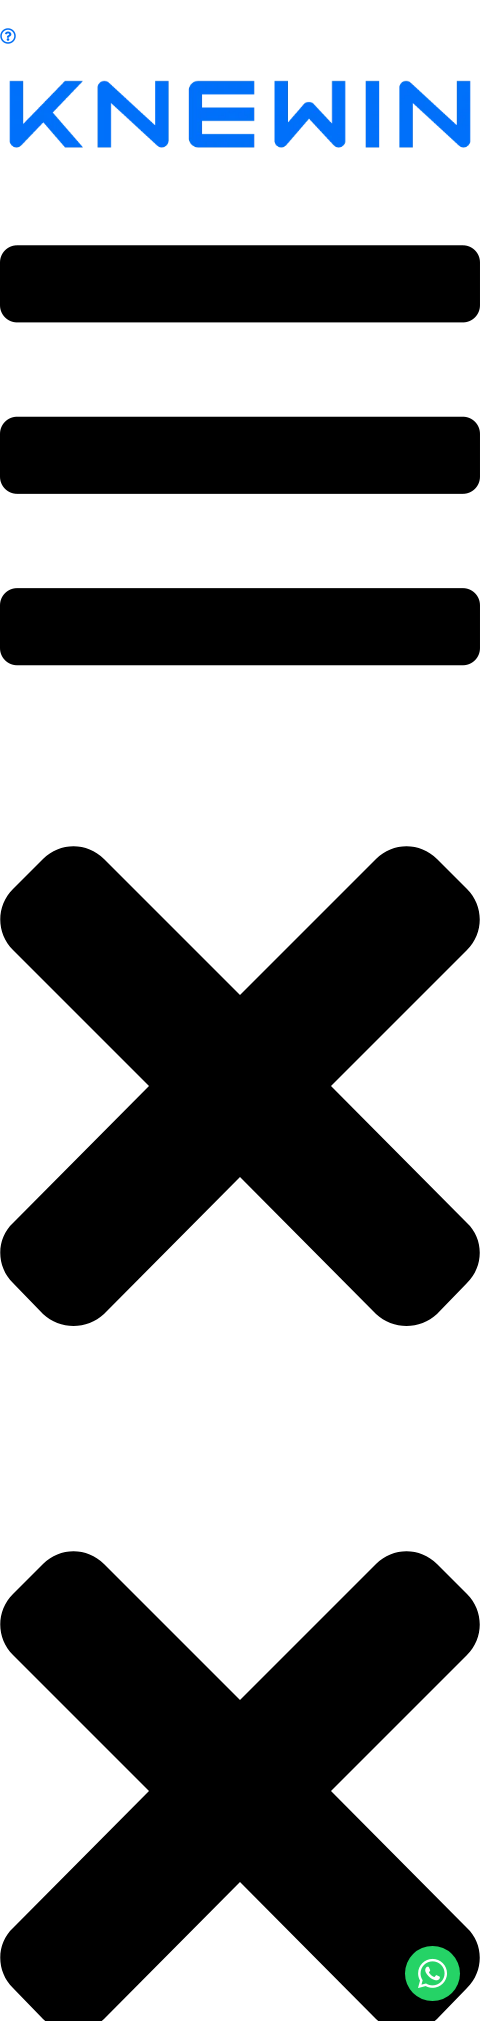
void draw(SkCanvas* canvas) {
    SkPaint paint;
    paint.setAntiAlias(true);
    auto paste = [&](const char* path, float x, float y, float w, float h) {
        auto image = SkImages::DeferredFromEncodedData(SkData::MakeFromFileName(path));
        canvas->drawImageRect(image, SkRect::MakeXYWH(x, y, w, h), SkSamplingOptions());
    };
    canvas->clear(SK_ColorWHITE);
    paste("pic1.png", 0, 28, 16, 16);
    paste("pic2.png", 9, 80, 462, 68);
    paste("pic3.png", 0, 245, 480, 421);
    paint.setColor(SK_ColorBLACK);
    canvas->drawPath(SkPathBuilder().moveTo(331, 1086).lineTo(467, 950).cubicTo(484, 933, 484, 906, 467, 889).lineTo(437, 859).cubicTo(420, 842, 393, 842, 376, 859).lineTo(240, 995).lineTo(104, 859).cubicTo(87, 842, 60, 842, 43, 859).lineTo(13, 889).cubicTo(-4, 906, -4, 933, 13, 950).lineTo(149, 1086).lineTo(13, 1223).cubicTo(-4, 1239, -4, 1266, 13, 1283).lineTo(43, 1314).cubicTo(60, 1330, 87, 1330, 104, 1314).lineTo(240, 1177).lineTo(376, 1314).cubicTo(393, 1330, 420, 1330, 437, 1314).lineTo(467, 1283).cubicTo(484, 1266, 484, 1239, 467, 1223).close().detach(), paint);
    canvas->drawPath(SkPathBuilder().moveTo(331, 1791).lineTo(467, 1655).cubicTo(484, 1638, 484, 1611, 467, 1594).lineTo(437, 1564).cubicTo(420, 1547, 393, 1547, 376, 1564).lineTo(240, 1700).lineTo(104, 1564).cubicTo(87, 1547, 60, 1547, 43, 1564).lineTo(13, 1594).cubicTo(-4, 1611, -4, 1638, 13, 1655).lineTo(149, 1791).lineTo(13, 1928).cubicTo(-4, 1944, -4, 1971, 13, 1988).lineTo(43, 2019).cubicTo(60, 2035, 87, 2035, 104, 2019).lineTo(240, 1882).lineTo(376, 2019).cubicTo(393, 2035, 420, 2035, 437, 2019).lineTo(467, 1988).cubicTo(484, 1971, 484, 1944, 467, 1928).close().detach(), paint);
    paint.setColor(SkColorSetRGB(37, 211, 102));
    canvas->drawCircle(432.5f, 1973.5f, 27.5f, paint);
    paste("pic4.png", 418, 1958, 29, 30);
}
